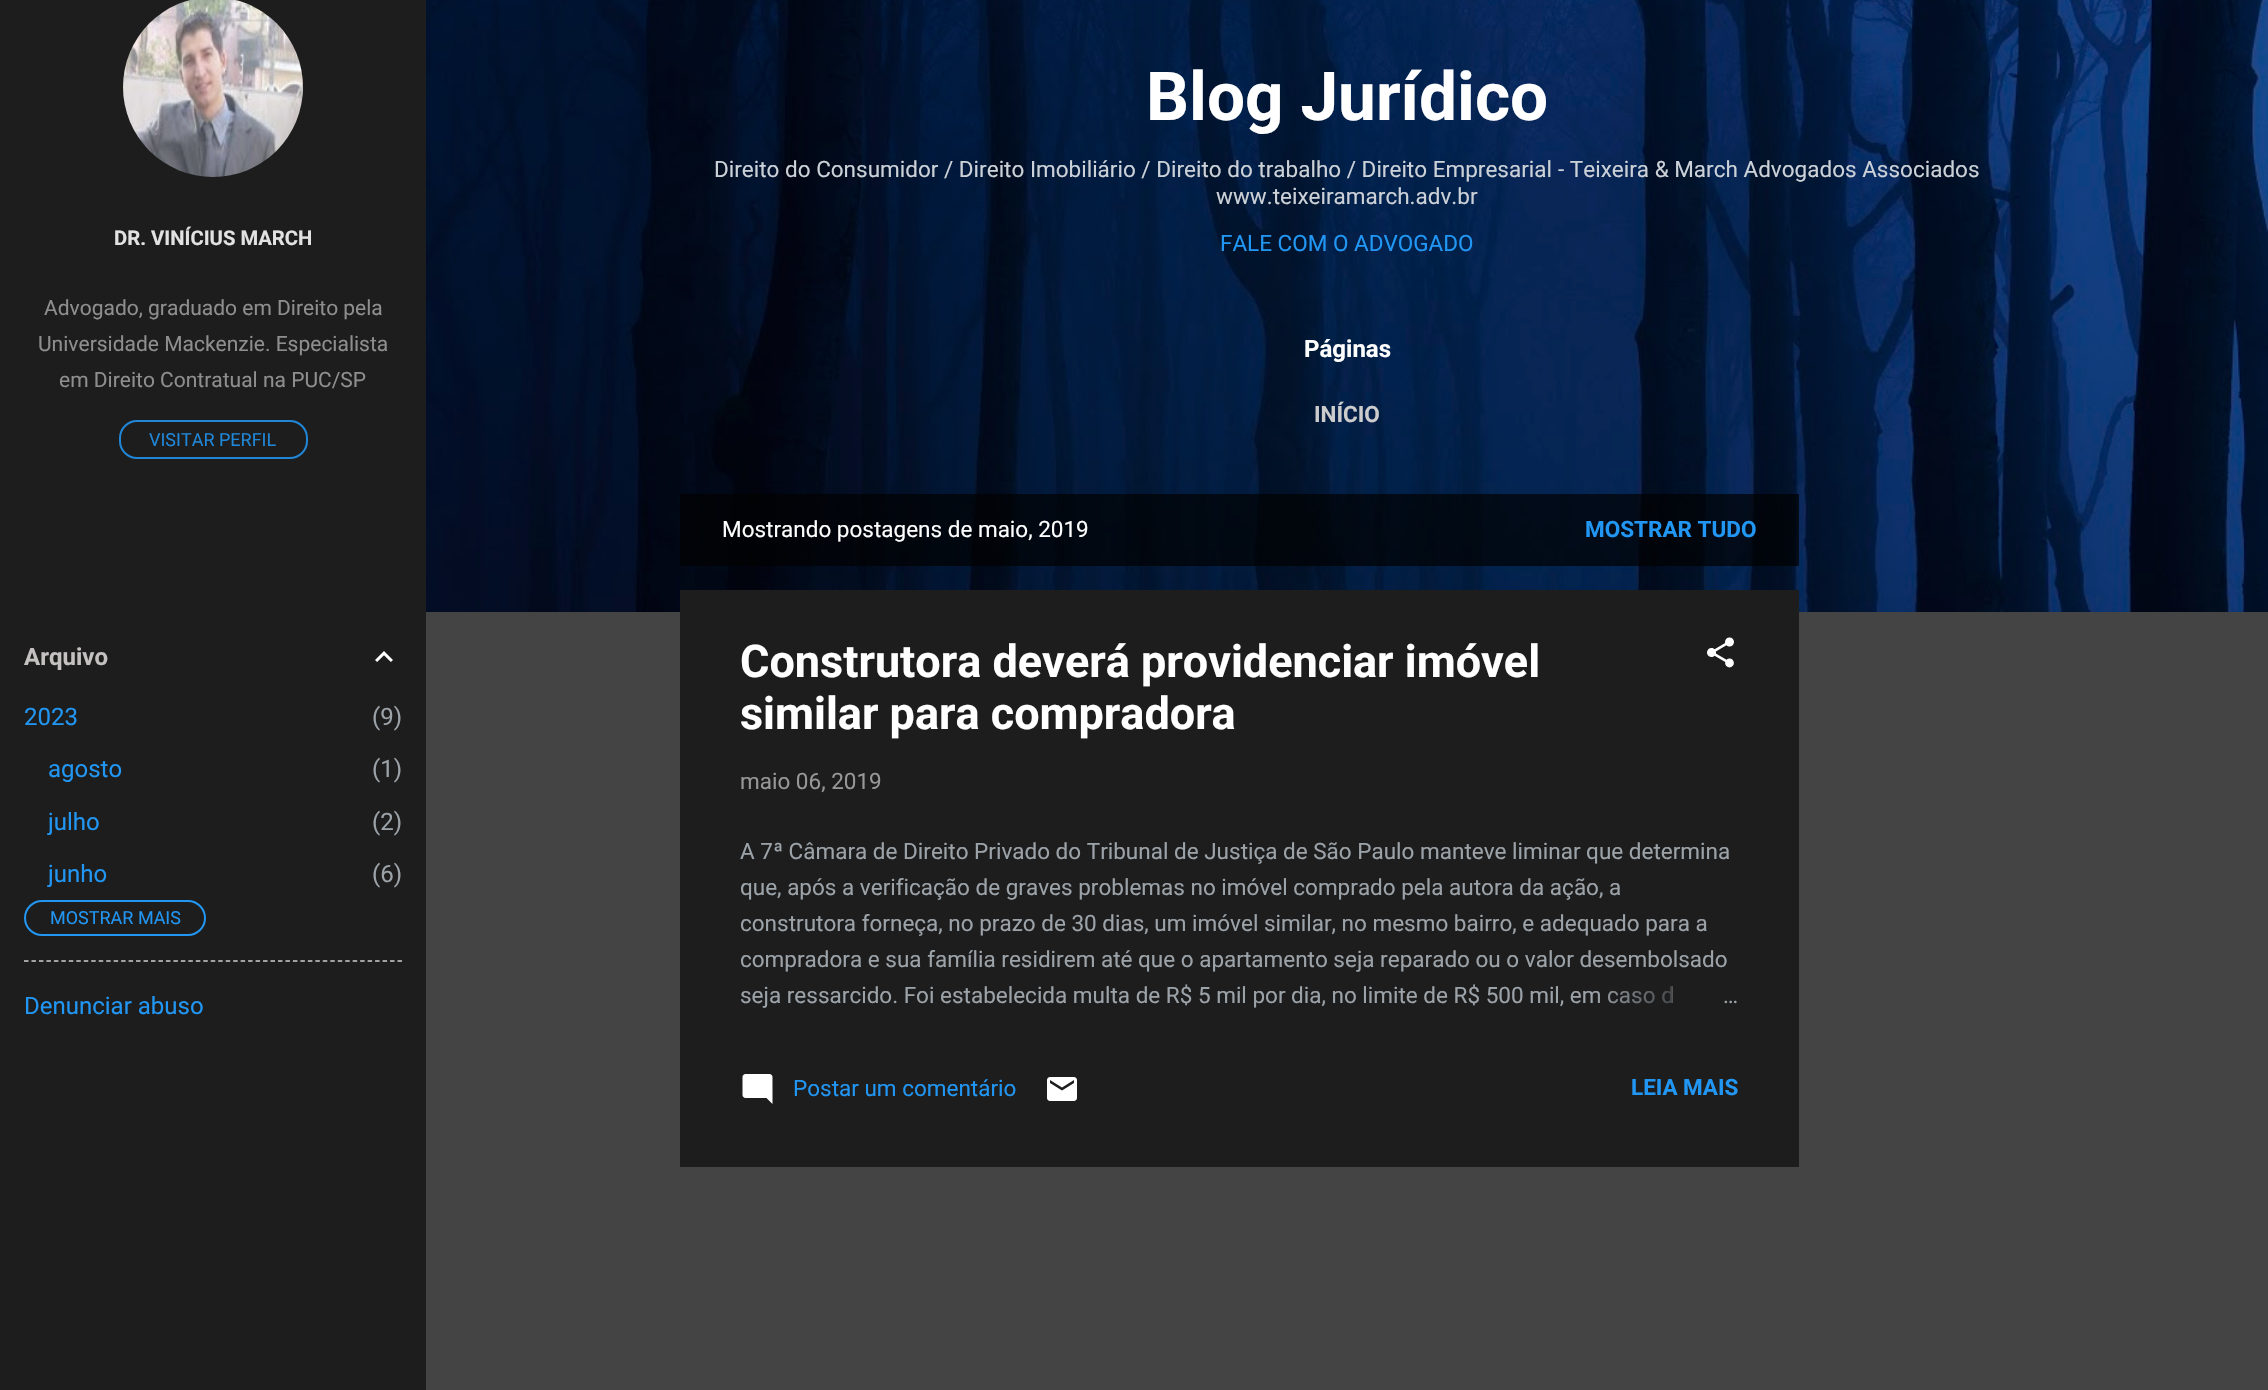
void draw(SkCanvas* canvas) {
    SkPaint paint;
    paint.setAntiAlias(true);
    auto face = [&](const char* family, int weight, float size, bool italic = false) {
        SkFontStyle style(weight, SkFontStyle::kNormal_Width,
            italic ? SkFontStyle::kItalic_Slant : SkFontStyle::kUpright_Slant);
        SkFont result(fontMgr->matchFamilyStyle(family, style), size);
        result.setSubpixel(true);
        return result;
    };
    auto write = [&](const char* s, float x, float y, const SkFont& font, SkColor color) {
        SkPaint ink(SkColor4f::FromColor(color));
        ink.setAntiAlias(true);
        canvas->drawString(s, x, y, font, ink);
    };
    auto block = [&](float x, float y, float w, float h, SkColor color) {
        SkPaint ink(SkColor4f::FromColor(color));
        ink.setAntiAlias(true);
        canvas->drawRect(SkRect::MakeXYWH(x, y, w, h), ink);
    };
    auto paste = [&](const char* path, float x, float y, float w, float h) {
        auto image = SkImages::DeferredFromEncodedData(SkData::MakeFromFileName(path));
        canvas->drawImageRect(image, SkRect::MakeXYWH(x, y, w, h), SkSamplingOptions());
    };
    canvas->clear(SkColorSetRGB(68, 68, 68));
    block(0, 0, 426, 1390, SkColorSetRGB(29, 29, 29));
    paste("pic1.png", 123, 0, 180, 177);
    auto kFont1 = face("Roboto", 700, 20.25f);
    write("DR. VINÍCIUS MARCH", 114, 245, kFont1, SkColorSetRGB(226, 226, 226));
    auto kFont2 = face("Roboto", 400, 21);
    write("Advogado, graduado em Direito pela", 44, 315, kFont2, SkColorSetRGB(142, 142, 142));
    write("Universidade Mackenzie. Especialista", 38, 351, kFont2, SkColorSetRGB(142, 142, 142));
    write("em Direito Contratual na PUC/SP", 59, 387, kFont2, SkColorSetRGB(142, 142, 142));
    paint.setStyle(SkPaint::kStroke_Style);
    paint.setStrokeWidth(2);
    paint.setColor(SkColorSetRGB(32, 134, 215));
    canvas->drawRoundRect(SkRect::MakeXYWH(120, 421, 187, 37), 17, 17, paint);
    auto kFont3 = face("Roboto", 400, 18);
    write("VISITAR PERFIL", 149, 446, kFont3, SkColorSetRGB(32, 134, 215));
    auto kFont4 = face("Roboto", 700, 24);
    write("Arquivo", 24, 665, kFont4, SkColorSetRGB(197, 193, 193));
    paste("pic2.png", 375, 651, 18, 11);
    auto kFont5 = face("Roboto", 400, 24);
    write("2023", 24, 725, kFont5, SkColorSetRGB(33, 150, 243));
    write("(9)", 372, 725, kFont5, SkColorSetRGB(155, 162, 168));
    write("agosto", 48, 777, kFont5, SkColorSetRGB(33, 150, 243));
    write("(1)", 372, 777, kFont5, SkColorSetRGB(155, 162, 168));
    write("julho", 48, 830, kFont5, SkColorSetRGB(33, 150, 243));
    write("(2)", 372, 830, kFont5, SkColorSetRGB(155, 162, 168));
    write("junho", 48, 882, kFont5, SkColorSetRGB(33, 150, 243));
    write("(6)", 372, 882, kFont5, SkColorSetRGB(155, 162, 168));
    paint.setColor(SkColorSetRGB(33, 150, 243));
    canvas->drawRoundRect(SkRect::MakeXYWH(25, 901, 180, 34), 17, 17, paint);
    write("MOSTRAR MAIS", 50, 924, kFont3, SkColorSetRGB(33, 150, 243));
    paint.setStrokeWidth(1.5f);
    paint.setColor(SkColorSetRGB(204, 204, 204));
    paint.setPathEffect(SkDashPathEffect::Make({{4.5f, 2.97f}}, 0));
    canvas->drawPath(SkPathBuilder().moveTo(24, 961).lineTo(402, 961).detach(), paint);
    paint.setPathEffect(nullptr);
    write("Denunciar abuso", 24, 1014, kFont5, SkColorSetRGB(33, 150, 243));
    paste("pic3.png", 426, 0, 1842, 612);
    auto kFont6 = face("Roboto", 700, 67.5f);
    write("Blog Jurídico", 1146, 120, kFont6, SK_ColorWHITE);
    auto kFont7 = face("Roboto", 400, 22.5f);
    write("Direito do Consumidor / Direito Imobiliário / Direito do trabalho / Direito Empresarial", 714, 177, kFont7, SkColorSetRGB(204, 209, 216));
    write("- Teixeira & March Advogados Associados", 1558, 177, kFont7, SkColorSetRGB(204, 209, 216));
    write("www.teixeiramarch.adv.br", 1216, 204, kFont7, SkColorSetRGB(204, 209, 216));
    write("FALE COM O ADVOGADO", 1220, 251, kFont7, SkColorSetRGB(33, 150, 243));
    write("Páginas", 1304, 357, kFont4, SK_ColorWHITE);
    auto kFont8 = face("Roboto", 700, 22.5f);
    write("INÍCIO", 1314, 422, kFont8, SkColorSetRGB(204, 204, 204));
    block(680, 494, 1119, 72, SkColorSetARGB(179, 0, 0, 0));
    write("Mostrando postagens de maio, 2019", 722, 537, kFont7, SK_ColorWHITE);
    write("MOSTRAR TUDO", 1585, 537, kFont8, SkColorSetRGB(33, 150, 243));
    block(680, 590, 1119, 577, SkColorSetRGB(29, 29, 29));
    auto kFont9 = face("Roboto", 700, 45);
    write("Construtora deverá providenciar imóvel", 740, 677, kFont9, SK_ColorWHITE);
    write("similar para compradora", 740, 729, kFont9, SK_ColorWHITE);
    paste("pic4.png", 1707, 637, 27, 31);
    write("maio 06, 2019", 740, 789, kFont7, SkColorSetRGB(151, 151, 151));
    write("A 7ª Câmara de Direito Privado do Tribunal de Justiça de São Paulo manteve liminar que determina", 740, 859, kFont7, SkColorSetRGB(155, 162, 168));
    write("que, após a verificação de graves problemas no imóvel comprado pela autora da ação, a", 740, 895, kFont7, SkColorSetRGB(155, 162, 168));
    write("construtora forneça, no prazo de 30 dias, um imóvel similar, no mesmo bairro, e adequado para a", 740, 931, kFont7, SkColorSetRGB(155, 162, 168));
    write("compradora e sua família residirem até que o apartamento seja reparado ou o valor desembolsado", 740, 967, kFont7, SkColorSetRGB(155, 162, 168));
    write("seja ressarcido. Foi estabelecida multa de R$ 5 mil por dia, no limite de R$ 500 mil, em caso d", 740, 1003, kFont7, SkColorSetRGB(155, 162, 168));
    paint.setStyle(SkPaint::kFill_Style);
    {
        const SkColor colors[] = {SkColorSetRGB(29, 29, 29), SkColorSetRGB(29, 29, 29), SkColorSetARGB(0, 29, 29, 29)};
        const float stops[] = {0, 0.2f, 1};
        const SkPoint ends[] = {{1739, 996}, {1595, 996}};
        paint.setShader(SkGradientShader::MakeLinear(ends, colors, stops, 3, SkTileMode::kClamp));
        paint.setAlpha(255);
    }
    canvas->drawRect(SkRect::MakeXYWH(1597, 986, 75, 18), paint);
    write("…", 1723, 1003, kFont7, SkColorSetRGB(155, 162, 168));
    paste("pic5.png", 742, 1074, 31, 30);
    write("Postar um comentário", 793, 1096, kFont7, SkColorSetRGB(33, 150, 243));
    paste("pic6.png", 1047, 1077, 30, 24);
    write("LEIA MAIS", 1631, 1095, kFont8, SkColorSetRGB(33, 150, 243));
}
